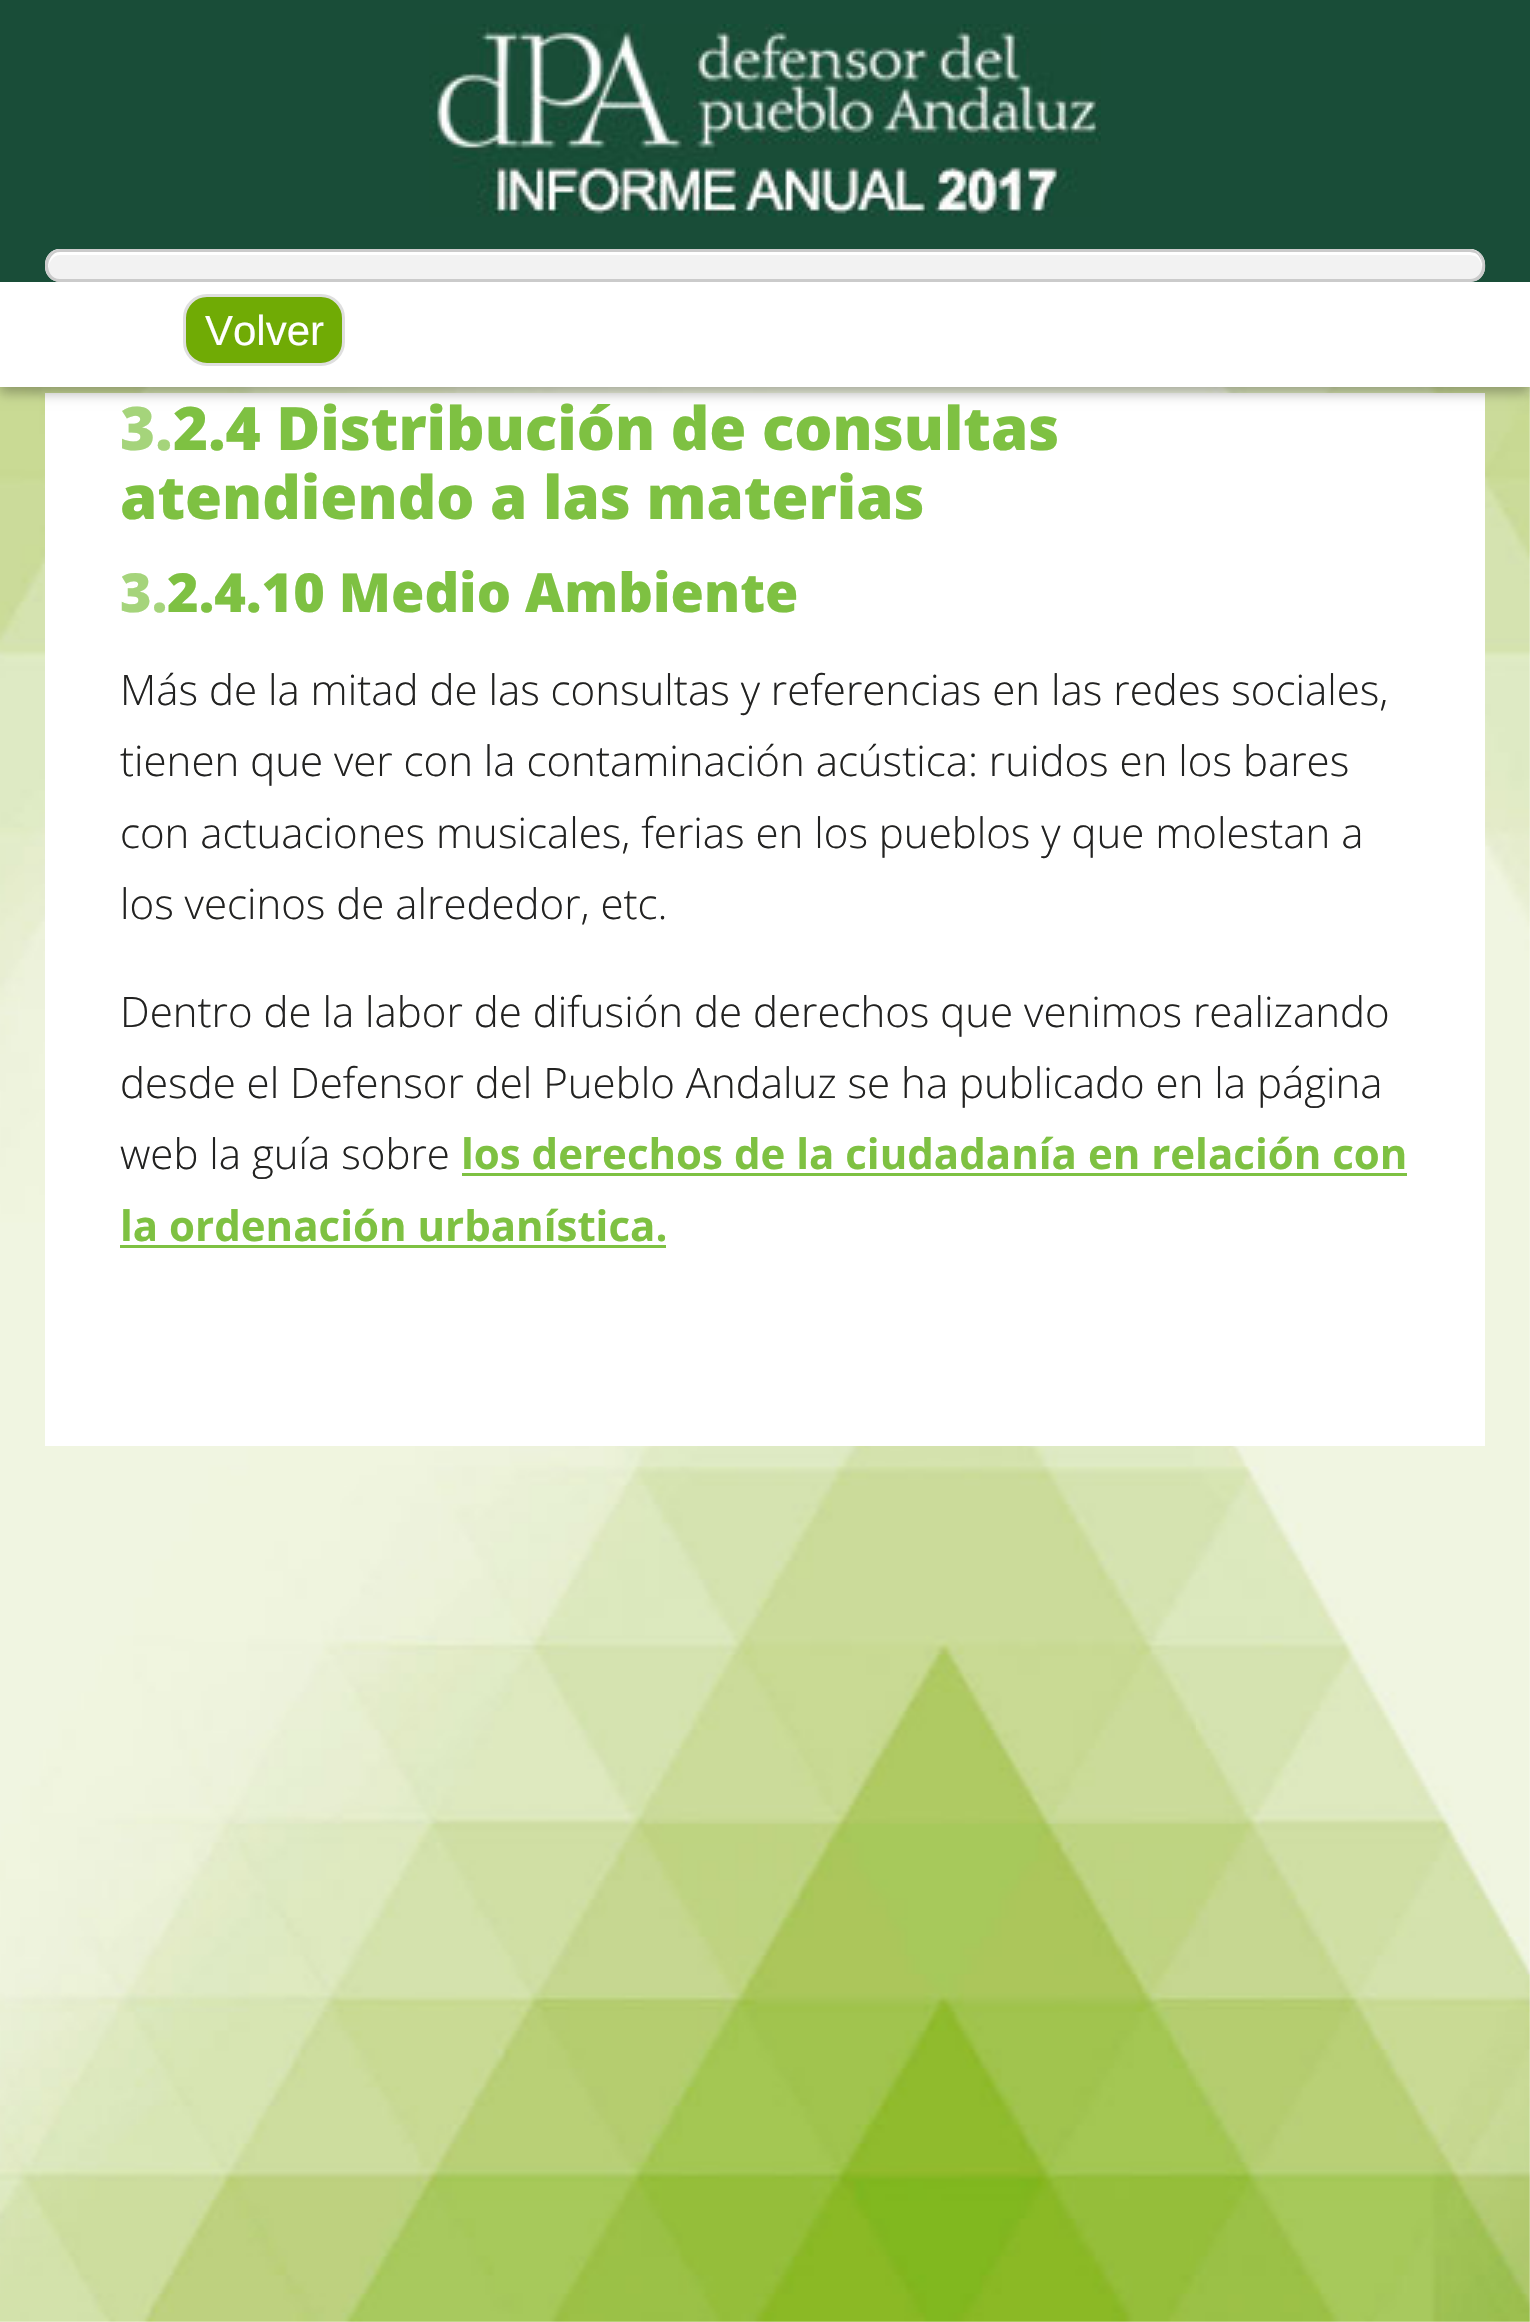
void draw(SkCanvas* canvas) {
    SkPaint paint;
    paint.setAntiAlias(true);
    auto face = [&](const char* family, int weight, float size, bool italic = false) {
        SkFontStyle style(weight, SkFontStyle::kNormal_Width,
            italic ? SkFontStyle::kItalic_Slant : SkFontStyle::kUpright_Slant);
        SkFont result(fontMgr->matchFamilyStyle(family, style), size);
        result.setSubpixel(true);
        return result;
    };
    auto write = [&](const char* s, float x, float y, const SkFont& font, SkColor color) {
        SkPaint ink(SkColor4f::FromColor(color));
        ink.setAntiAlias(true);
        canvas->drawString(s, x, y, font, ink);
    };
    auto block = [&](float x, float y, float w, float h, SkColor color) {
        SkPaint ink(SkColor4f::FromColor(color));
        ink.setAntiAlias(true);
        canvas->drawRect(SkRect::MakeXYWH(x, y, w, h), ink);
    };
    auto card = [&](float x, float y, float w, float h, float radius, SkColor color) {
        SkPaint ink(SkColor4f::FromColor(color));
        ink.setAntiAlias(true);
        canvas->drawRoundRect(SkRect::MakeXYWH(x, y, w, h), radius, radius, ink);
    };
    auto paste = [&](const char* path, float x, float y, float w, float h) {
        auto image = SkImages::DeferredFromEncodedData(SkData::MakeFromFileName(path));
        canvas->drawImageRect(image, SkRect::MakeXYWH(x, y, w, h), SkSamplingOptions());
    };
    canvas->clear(SK_ColorWHITE);
    paste("pic1.png", 0, 387, 1530, 1935);
    block(45, 393, 1440, 1053, SK_ColorWHITE);
    paint.setColor(SkColorSetARGB(77, 0, 0, 0));
    paint.setMaskFilter(SkMaskFilter::MakeBlur(kNormal_SkBlurStyle, 6));
    canvas->drawRect(SkRect::MakeXYWH(0, 6, 1530, 387), paint);
    paint.setMaskFilter(nullptr);
    block(0, 282, 1530, 105, SK_ColorWHITE);
    block(0, 0, 1530, 282, SkColorSetRGB(25, 77, 56));
    paste("pic2.png", 429, 24, 672, 193);
    card(45, 249, 1440, 33, 15, SkColorSetRGB(242, 242, 242));
    paint.setColor(SK_ColorWHITE);
    canvas->drawPath(SkPathBuilder().moveTo(60, 255).lineTo(1470, 255).lineTo(1475, 256).cubicTo(1479, 258, 1481, 262, 1482, 267).lineTo(1482, 264).cubicTo(1482, 256, 1477, 249, 1470, 249).lineTo(60, 249).cubicTo(53, 249, 48, 256, 48, 264).lineTo(48, 269).cubicTo(49, 262, 53, 255, 60, 255).close().detach(), paint);
    paint.setColor(SkColorSetRGB(203, 203, 203));
    canvas->drawPath(SkPathBuilder().moveTo(60, 252).lineTo(1470, 252).lineTo(1475, 253).cubicTo(1479, 255, 1481, 259, 1482, 264).cubicTo(1482, 255, 1476, 249, 1470, 249).lineTo(60, 249).cubicTo(53, 249, 48, 256, 48, 264).lineTo(48, 267).cubicTo(48, 260, 52, 252, 60, 252).close().detach(), paint);
    canvas->drawPath(SkPathBuilder(SkPathFillType::kEvenOdd).moveTo(60, 249).lineTo(1470, 249).cubicTo(1487, 249, 1491, 275, 1476, 281).lineTo(1470, 282).lineTo(60, 282).cubicTo(40, 282, 40, 249, 60, 249).close().moveTo(60, 249).lineTo(1470, 249).lineTo(1475, 250).cubicTo(1486, 256, 1485, 279, 1470, 279).lineTo(60, 279).cubicTo(43, 279, 45, 249, 60, 249).close().detach(), paint);
    paint.setColor(SkColorSetRGB(112, 171, 5));
    canvas->drawRoundRect(SkRect::MakeXYWH(184.5f, 295.5f, 159, 69), 22.5f, 22.5f, paint);
    paint.setStyle(SkPaint::kStroke_Style);
    paint.setStrokeWidth(3);
    paint.setColor(SkColorSetRGB(223, 223, 223));
    canvas->drawRoundRect(SkRect::MakeXYWH(184.5f, 295.5f, 159, 69), 22.5f, 22.5f, paint);
    auto kFont1 = face("Liberation Sans", 400, 42);
    write("Volver", 205, 345, kFont1, SK_ColorWHITE);
    auto kFont2 = face("Open Sans", 800, 60);
    write("3.", 120, 450, kFont2, SkColorSetRGB(165, 212, 123));
    write("2.4 Distribución de consultas", 173, 450, kFont2, SkColorSetRGB(126, 193, 66));
    write("atendiendo a las materias", 120, 519, kFont2, SkColorSetRGB(126, 193, 66));
    auto kFont3 = face("Open Sans", 800, 54);
    write("3.", 120, 612, kFont3, SkColorSetRGB(165, 212, 123));
    write("2.4.10 Medio Ambiente", 167, 612, kFont3, SkColorSetRGB(126, 193, 66));
    auto kFont4 = face("Open Sans", 300, 42);
    write("Más de la mitad de las consultas y referencias en las redes sociales,", 120, 705, kFont4, SkColorSetRGB(34, 34, 33));
    write("tienen que ver con la contaminación acústica: ruidos en los bares", 120, 776, kFont4, SkColorSetRGB(34, 34, 33));
    write("con actuaciones musicales, ferias en los pueblos y que molestan a", 120, 848, kFont4, SkColorSetRGB(34, 34, 33));
    write("los vecinos de alrededor, etc.", 120, 919, kFont4, SkColorSetRGB(34, 34, 33));
    write("Dentro de la labor de difusión de derechos que venimos realizando", 120, 1027, kFont4, SkColorSetRGB(34, 34, 33));
    write("desde el Defensor del Pueblo Andaluz se ha publicado en la página", 120, 1098, kFont4, SkColorSetRGB(34, 34, 33));
    write("web la guía sobre", 120, 1169, kFont4, SkColorSetRGB(34, 34, 33));
    auto kFont5 = face("Open Sans", 700, 42);
    write("los derechos de la ciudadanía en relación con", 461, 1169, kFont5, SkColorSetRGB(126, 193, 66));
    block(462, 1173, 945, 3, SkColorSetRGB(126, 193, 66));
    write("la ordenación urbanística.", 120, 1241, kFont5, SkColorSetRGB(126, 193, 66));
    block(120, 1245, 546, 3, SkColorSetRGB(126, 193, 66));
}
